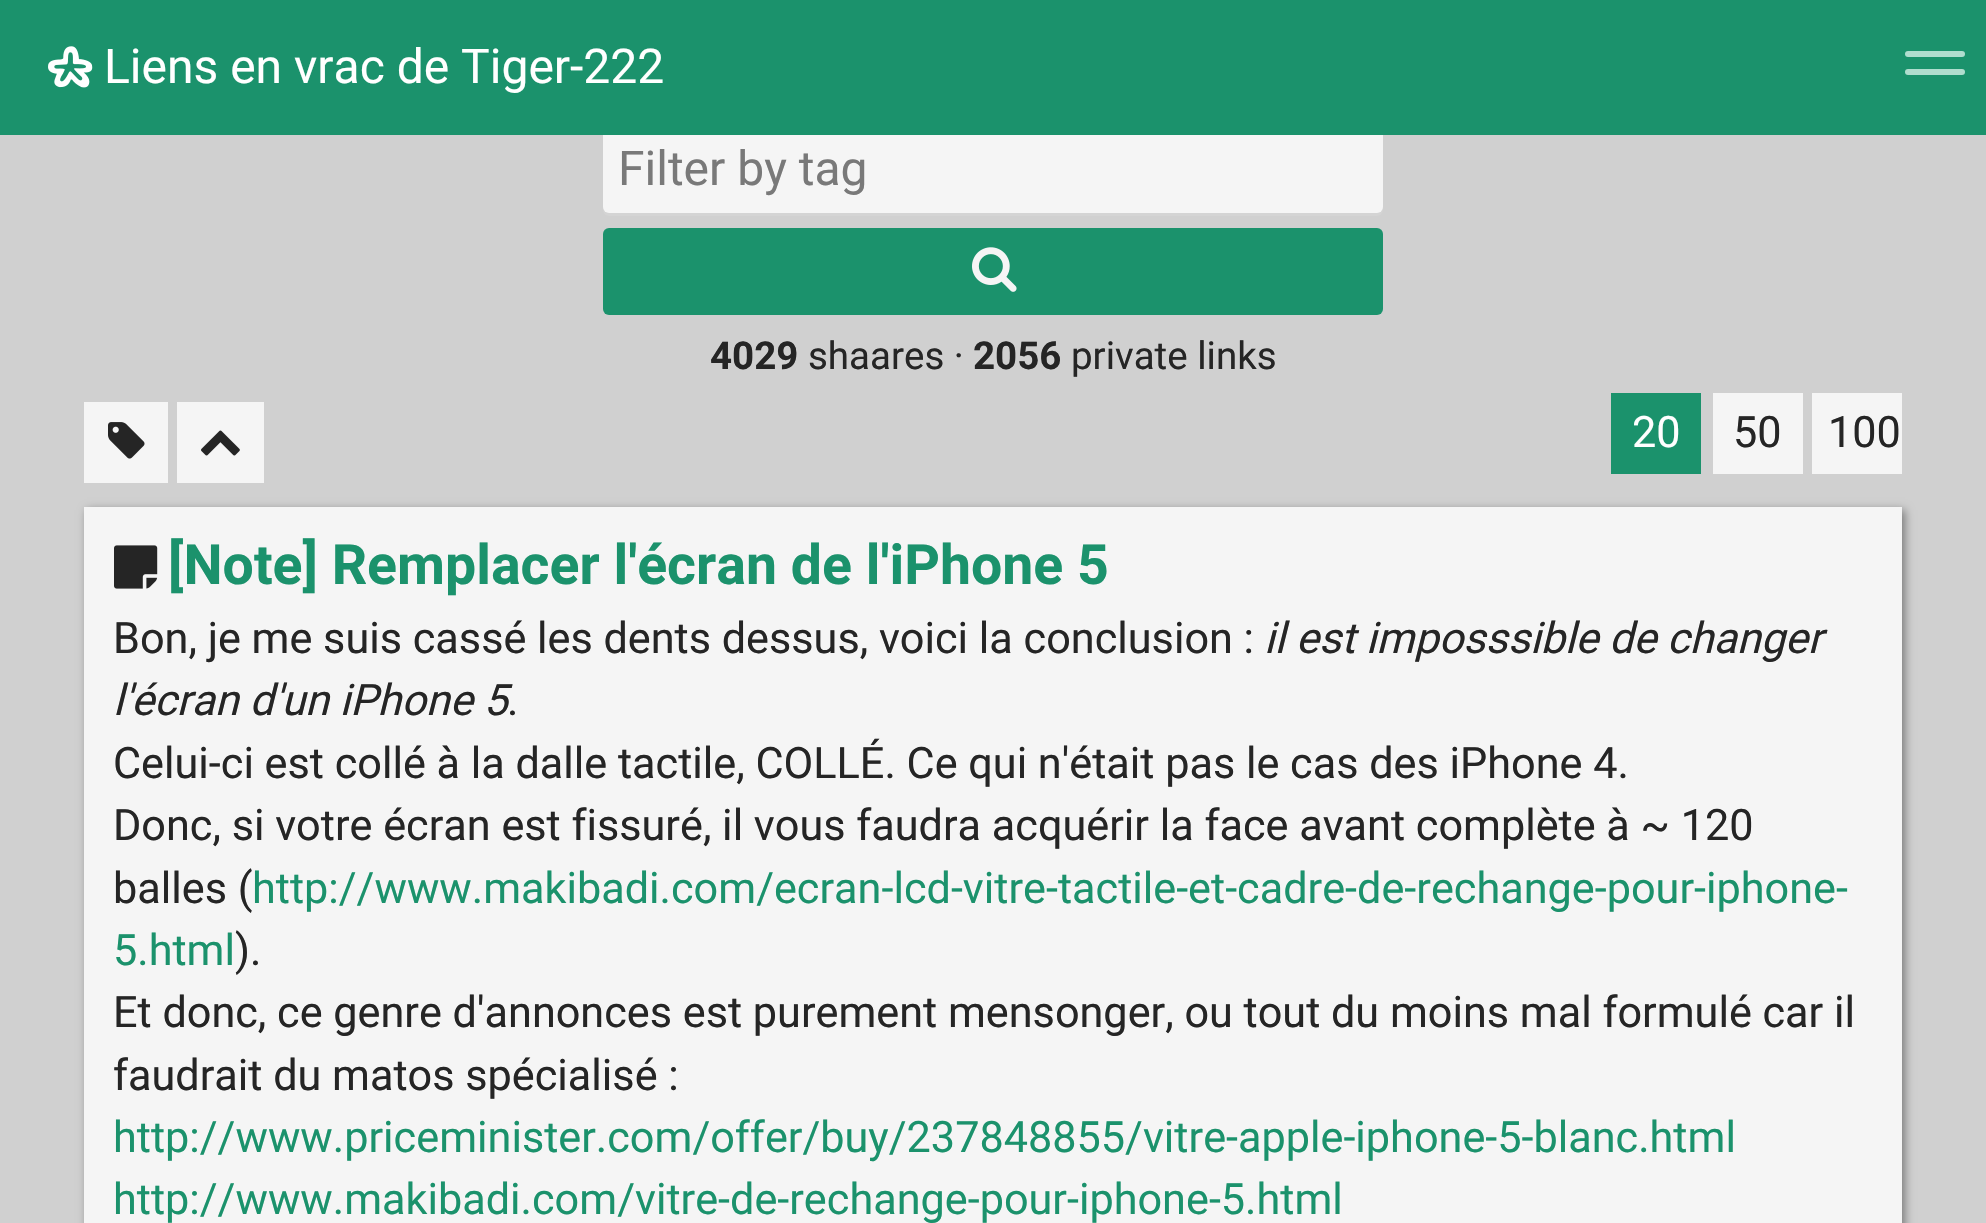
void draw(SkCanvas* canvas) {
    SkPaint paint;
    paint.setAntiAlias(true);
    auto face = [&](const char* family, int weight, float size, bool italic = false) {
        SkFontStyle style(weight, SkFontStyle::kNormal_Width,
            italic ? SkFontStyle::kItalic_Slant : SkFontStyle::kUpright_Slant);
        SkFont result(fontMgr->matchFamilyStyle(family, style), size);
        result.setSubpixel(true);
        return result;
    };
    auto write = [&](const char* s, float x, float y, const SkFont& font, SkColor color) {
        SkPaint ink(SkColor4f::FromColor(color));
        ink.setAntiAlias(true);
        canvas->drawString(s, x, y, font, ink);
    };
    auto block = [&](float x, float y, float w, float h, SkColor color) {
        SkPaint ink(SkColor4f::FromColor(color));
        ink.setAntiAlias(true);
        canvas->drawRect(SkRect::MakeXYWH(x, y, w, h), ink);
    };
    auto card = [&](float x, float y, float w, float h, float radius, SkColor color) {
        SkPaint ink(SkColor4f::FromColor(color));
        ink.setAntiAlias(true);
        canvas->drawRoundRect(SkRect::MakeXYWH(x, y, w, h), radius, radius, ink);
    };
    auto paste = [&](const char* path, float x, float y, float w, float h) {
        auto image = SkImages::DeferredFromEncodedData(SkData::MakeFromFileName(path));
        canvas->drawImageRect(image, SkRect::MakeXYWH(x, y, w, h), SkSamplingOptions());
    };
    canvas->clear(SkColorSetRGB(208, 208, 208));
    paint.setColor(SkColorSetRGB(212, 212, 212));
    canvas->drawPath(SkPathBuilder().moveTo(603, 207).lineTo(603, 210).cubicTo(603, 213, 606, 216, 609, 216).lineTo(1377, 216).cubicTo(1380, 216, 1383, 213, 1383, 210).lineTo(1383, 207).cubicTo(1383, 210, 1380, 213, 1377, 213).lineTo(609, 213).cubicTo(606, 213, 603, 210, 603, 207).close().detach(), paint);
    card(603, 123, 780, 90, 6, SkColorSetRGB(245, 245, 245));
    block(0, 0, 1986, 135, SkColorSetRGB(27, 146, 108));
    paste("pic1.png", 48, 46, 45, 42);
    auto kFont1 = face("Roboto", 400, 48);
    write("Liens en vrac de Tiger-222", 104, 83, kFont1, SK_ColorWHITE);
    card(1905, 51, 60, 6, 3, SkColorSetRGB(176, 221, 206));
    card(1905, 69, 60, 6, 3, SkColorSetRGB(176, 221, 206));
    write("Filter by tag", 618, 185, kFont1, SkColorSetRGB(121, 121, 121));
    card(603, 228, 780, 87, 6, SkColorSetRGB(27, 146, 108));
    paste("pic2.png", 972, 247, 45, 45);
    auto kFont2 = face("Roboto", 700, 38.5f);
    write("4029", 710, 369, kFont2, SkColorSetRGB(37, 37, 37));
    auto kFont3 = face("Roboto", 400, 38.5f);
    write("shaares ·", 808, 369, kFont3, SkColorSetRGB(37, 37, 37));
    write("2056", 973, 369, kFont2, SkColorSetRGB(37, 37, 37));
    write("private links", 1071, 369, kFont3, SkColorSetRGB(37, 37, 37));
    block(84, 402, 84, 81, SkColorSetRGB(245, 245, 245));
    paste("pic3.png", 108, 422, 37, 37);
    block(177, 402, 87, 81, SkColorSetRGB(245, 245, 245));
    paste("pic4.png", 201, 430, 39, 26);
    block(1611, 393, 90, 81, SkColorSetRGB(27, 146, 108));
    auto kFont4 = face("Roboto", 400, 43.2f);
    write("20", 1632, 447, kFont4, SK_ColorWHITE);
    block(1713, 393, 90, 81, SkColorSetRGB(245, 245, 245));
    write("50", 1733, 447, kFont4, SkColorSetRGB(37, 37, 37));
    block(1812, 393, 90, 81, SkColorSetRGB(245, 245, 245));
    write("100", 1828, 447, kFont4, SkColorSetRGB(37, 37, 37));
    paint.setColor(SkColorSetRGB(121, 121, 121));
    paint.setMaskFilter(SkMaskFilter::MakeBlur(kNormal_SkBlurStyle, 4.5f));
    canvas->drawRect(SkRect::MakeXYWH(87, 510, 1818, 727), paint);
    paint.setMaskFilter(nullptr);
    block(84, 507, 1818, 716, SkColorSetRGB(245, 245, 245));
    paste("pic5.png", 114, 545, 44, 44);
    auto kFont5 = face("Roboto", 700, 55.4f);
    write("[Note] Remplacer l'écran de l'iPhone 5", 168, 584, kFont5, SkColorSetRGB(27, 146, 108));
    write("Bon, je me suis cassé les dents dessus, voici la conclusion :", 113, 653, kFont4, SkColorSetRGB(37, 37, 37));
    auto kFont6 = face("Roboto", 400, 43.2f, true);
    write("il est imposssible de changer", 1264, 653, kFont6, SkColorSetRGB(37, 37, 37));
    write("l'écran d'un iPhone 5", 113, 715, kFont6, SkColorSetRGB(37, 37, 37));
    write(".", 507, 715, kFont4, SkColorSetRGB(37, 37, 37));
    write("Celui-ci est collé à la dalle tactile, COLLÉ. Ce qui n'était pas le cas des iPhone 4.", 113, 778, kFont4, SkColorSetRGB(37, 37, 37));
    write("Donc, si votre écran est fissuré, il vous faudra acquérir la face avant complète à ~ 120", 113, 840, kFont4, SkColorSetRGB(37, 37, 37));
    write("balles (", 113, 903, kFont4, SkColorSetRGB(37, 37, 37));
    write("http://www.makibadi.com/ecran-lcd-vitre-tactile-et-cadre-de-rechange-pour-iphone-", 252, 903, kFont4, SkColorSetRGB(27, 146, 108));
    write("5.html", 113, 965, kFont4, SkColorSetRGB(27, 146, 108));
    write(").", 235, 965, kFont4, SkColorSetRGB(37, 37, 37));
    write("Et donc, ce genre d'annonces est purement mensonger, ou tout du moins mal formulé car il", 113, 1027, kFont4, SkColorSetRGB(37, 37, 37));
    write("faudrait du matos spécialisé :", 113, 1090, kFont4, SkColorSetRGB(37, 37, 37));
    write("http://www.priceminister.com/offer/buy/237848855/vitre-apple-iphone-5-blanc.html", 113, 1152, kFont4, SkColorSetRGB(27, 146, 108));
    write("http://www.makibadi.com/vitre-de-rechange-pour-iphone-5.html", 113, 1214, kFont4, SkColorSetRGB(27, 146, 108));
}
